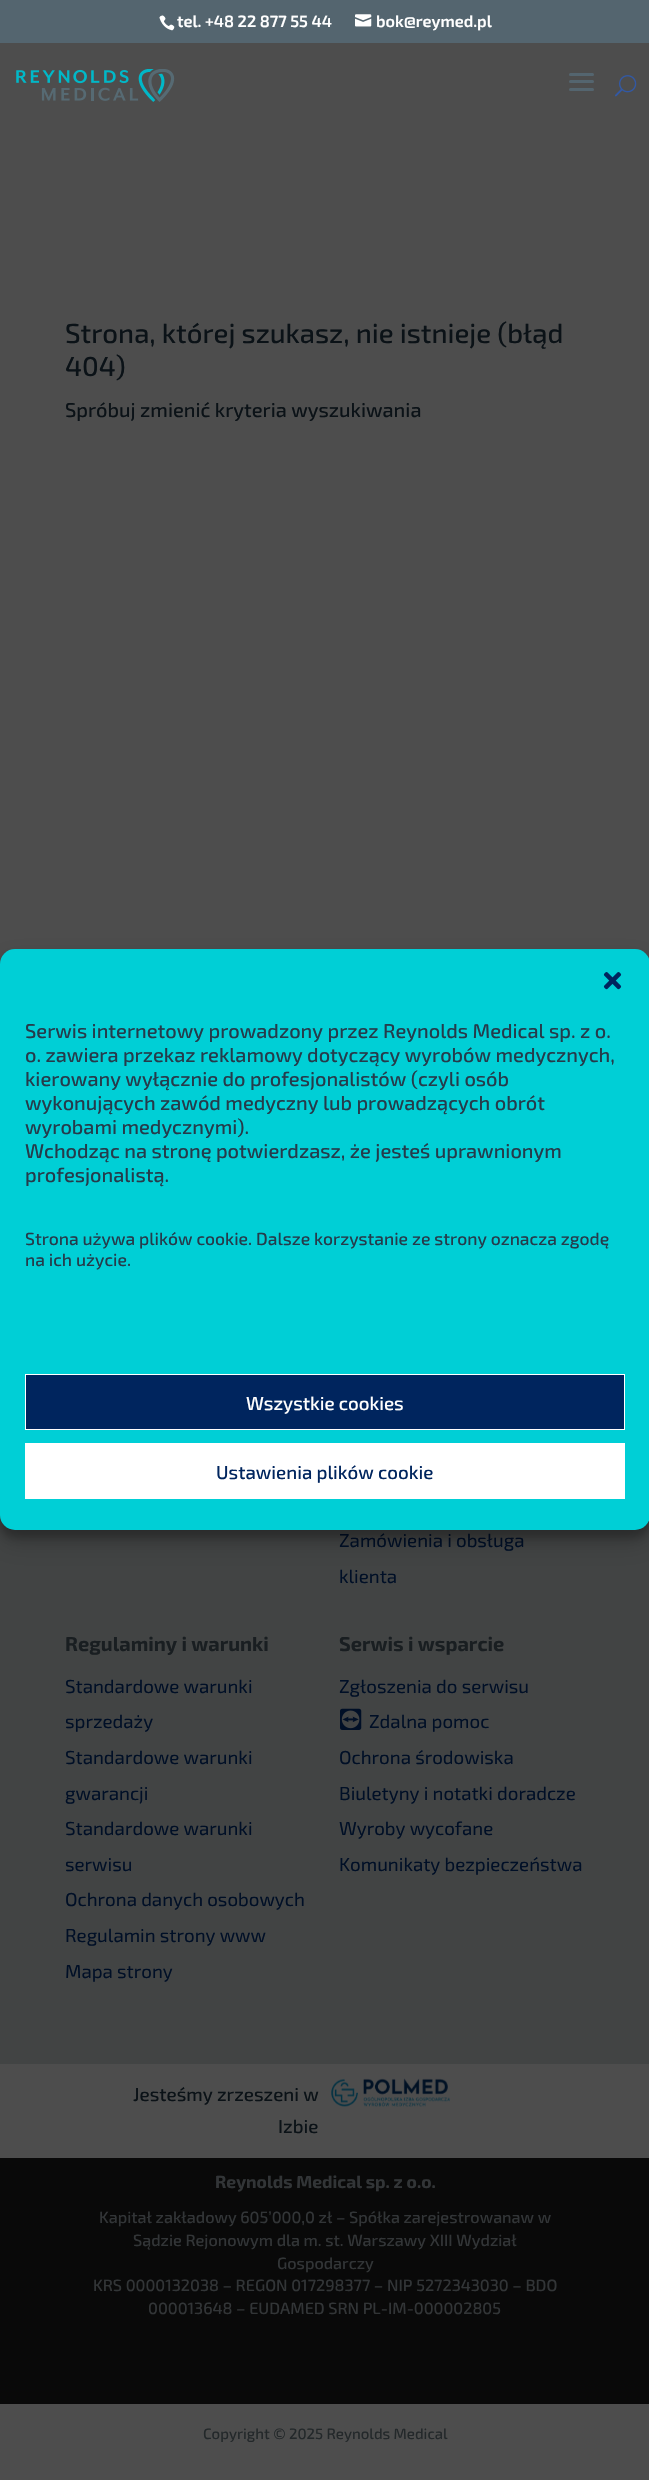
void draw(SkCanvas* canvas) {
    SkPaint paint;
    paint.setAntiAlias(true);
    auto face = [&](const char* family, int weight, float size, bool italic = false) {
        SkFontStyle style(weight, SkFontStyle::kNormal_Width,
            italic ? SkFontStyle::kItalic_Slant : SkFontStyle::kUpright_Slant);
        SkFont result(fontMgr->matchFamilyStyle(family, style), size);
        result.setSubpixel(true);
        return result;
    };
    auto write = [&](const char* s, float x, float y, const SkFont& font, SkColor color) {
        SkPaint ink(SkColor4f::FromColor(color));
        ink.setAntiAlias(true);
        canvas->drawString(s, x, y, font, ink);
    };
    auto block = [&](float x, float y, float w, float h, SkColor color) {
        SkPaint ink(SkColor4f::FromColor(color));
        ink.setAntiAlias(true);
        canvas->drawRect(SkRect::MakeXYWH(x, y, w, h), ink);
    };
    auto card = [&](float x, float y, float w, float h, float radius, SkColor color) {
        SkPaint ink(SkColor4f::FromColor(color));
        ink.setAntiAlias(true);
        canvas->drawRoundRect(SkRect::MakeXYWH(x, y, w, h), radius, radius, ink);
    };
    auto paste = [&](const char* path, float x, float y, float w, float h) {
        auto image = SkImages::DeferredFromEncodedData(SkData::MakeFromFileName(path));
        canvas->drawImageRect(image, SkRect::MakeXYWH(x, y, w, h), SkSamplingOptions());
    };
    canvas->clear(SkColorSetRGB(77, 77, 77));
    block(0, 0, 649, 43, SkColorSetRGB(84, 101, 111));
    paste("pic1.png", 159, 15, 16, 16);
    auto kFont1 = face("Exo 2", 600, 16.25f);
    write("tel. +48 22 877 55 44", 177, 27, kFont1, SK_ColorWHITE);
    paste("pic2.png", 355, 14, 17, 13);
    write("bok@reymed.pl", 376, 27, kFont1, SK_ColorWHITE);
    paste("pic3.png", 16, 69, 159, 33);
    card(569, 80, 25, 3, 1.5f, SkColorSetRGB(84, 101, 111));
    card(569, 73, 25, 3, 1.5f, SkColorSetRGB(84, 101, 111));
    card(569, 88, 25, 3, 1.5f, SkColorSetRGB(84, 101, 111));
    paste("pic4.png", 615, 75, 22, 22);
    auto kFont2 = face("Exo 2", 500, 27.5f);
    write("Strona, której szukasz, nie istnieje (błąd", 65, 343, kFont2, SkColorSetRGB(11, 18, 23));
    write("404)", 65, 376, kFont2, SkColorSetRGB(11, 18, 23));
    auto kFont3 = face("Exo 2", 500, 20);
    write("Spróbuj zmienić kryteria wyszukiwania", 65, 417, kFont3, SkColorSetRGB(11, 18, 23));
    block(0, 1515, 649, 549, SkColorSetRGB(66, 68, 68));
    auto kFont4 = face("Exo 2", 400, 18.75f);
    write("Zamówienia i obsługa", 339, 1547, kFont4, SkColorSetRGB(0, 15, 38));
    write("klienta", 339, 1583, kFont4, SkColorSetRGB(0, 15, 38));
    auto kFont5 = face("Exo 2", 700, 20);
    write("Regulaminy i warunki", 65, 1651, kFont5, SkColorSetRGB(25, 30, 33));
    write("Standardowe warunki", 65, 1693, kFont4, SkColorSetRGB(0, 15, 38));
    write("sprzedaży", 65, 1728, kFont4, SkColorSetRGB(0, 15, 38));
    write("Standardowe warunki", 65, 1764, kFont4, SkColorSetRGB(0, 15, 38));
    write("gwarancji", 65, 1800, kFont4, SkColorSetRGB(0, 15, 38));
    write("Standardowe warunki", 65, 1835, kFont4, SkColorSetRGB(0, 15, 38));
    write("serwisu", 65, 1871, kFont4, SkColorSetRGB(0, 15, 38));
    write("Ochrona danych osobowych", 65, 1906, kFont4, SkColorSetRGB(0, 15, 38));
    write("Regulamin strony www", 65, 1942, kFont4, SkColorSetRGB(0, 15, 38));
    write("Mapa strony", 65, 1978, kFont4, SkColorSetRGB(0, 15, 38));
    write("Serwis i wsparcie", 339, 1651, kFont5, SkColorSetRGB(25, 30, 33));
    write("Zgłoszenia do serwisu", 339, 1693, kFont4, SkColorSetRGB(0, 15, 38));
    paste("pic5.png", 340, 1708, 22, 22);
    write("Zdalna pomoc", 369, 1728, kFont4, SkColorSetRGB(0, 15, 38));
    write("Ochrona środowiska", 339, 1764, kFont4, SkColorSetRGB(0, 15, 38));
    write("Biuletyny i notatki doradcze", 339, 1800, kFont4, SkColorSetRGB(0, 15, 38));
    write("Wyroby wycofane", 339, 1835, kFont4, SkColorSetRGB(0, 15, 38));
    write("Komunikaty bezpieczeństwa", 339, 1871, kFont4, SkColorSetRGB(0, 15, 38));
    auto kFont6 = face("Exo 2", 500, 18.75f);
    write("Jesteśmy zrzeszeni w", 133, 2101, kFont6, SkColorSetRGB(11, 18, 23));
    write("Izbie", 278, 2133, kFont6, SkColorSetRGB(11, 18, 23));
    paste("pic6.png", 331, 2078, 119, 29);
    block(0, 2158, 649, 246, SkColorSetRGB(9, 9, 9));
    auto kFont7 = face("Exo 2", 700, 17.5f);
    write("Reynolds Medical sp. z o.o.", 215, 2188, kFont7, SkColorSetRGB(50, 53, 55));
    auto kFont8 = face("Exo 2", 500, 16.25f);
    write("Kapitał zakładowy 605’000,0 zł – Spółka zarejestrowanaw w", 99, 2223, kFont8, SkColorSetRGB(50, 53, 55));
    write("Sądzie Rejonowym dla m. st. Warszawy XIII Wydział", 133, 2246, kFont8, SkColorSetRGB(50, 53, 55));
    write("Gospodarczy", 277, 2269, kFont8, SkColorSetRGB(50, 53, 55));
    write("KRS 0000132038 – REGON 017298377 – NIP 5272343030 – BDO", 93, 2291, kFont8, SkColorSetRGB(50, 53, 55));
    write("000013648 – EUDAMED SRN PL-IM-000002805", 148, 2314, kFont8, SkColorSetRGB(50, 53, 55));
    auto kFont9 = face("Exo 2", 500, 15);
    write("Copyright © 2025 Reynolds Medical", 203, 2439, kFont9, SkColorSetRGB(35, 40, 42));
    paint.setColor(SkColorSetARGB(59, 0, 0, 0));
    paint.setMaskFilter(SkMaskFilter::MakeBlur(kNormal_SkBlurStyle, 4));
    canvas->drawRoundRect(SkRect::MakeXYWH(0, 956, 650, 582), 15, 15, paint);
    paint.setMaskFilter(nullptr);
    paint.setColor(SkColorSetARGB(48, 0, 0, 0));
    paint.setMaskFilter(SkMaskFilter::MakeBlur(kNormal_SkBlurStyle, 12.5f));
    canvas->drawRoundRect(SkRect::MakeXYWH(0, 961, 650, 582), 15, 15, paint);
    paint.setMaskFilter(nullptr);
    card(0, 949, 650, 581, 15, SkColorSetRGB(0, 207, 214));
    paste("pic7.png", 603, 972, 19, 18);
    write("Serwis internetowy prowadzony przez Reynolds Medical sp. z o.", 25, 1038, kFont3, SkColorSetRGB(37, 59, 75));
    write("o. zawiera przekaz reklamowy dotyczący wyrobów medycznych,", 25, 1062, kFont3, SkColorSetRGB(37, 59, 75));
    write("kierowany wyłącznie do profesjonalistów (czyli osób", 25, 1086, kFont3, SkColorSetRGB(37, 59, 75));
    write("wykonujących zawód medyczny lub prowadzących obrót", 25, 1110, kFont3, SkColorSetRGB(37, 59, 75));
    write("wyrobami medycznymi).", 25, 1134, kFont3, SkColorSetRGB(37, 59, 75));
    write("Wchodząc na stronę potwierdzasz, że jesteś uprawnionym", 25, 1158, kFont3, SkColorSetRGB(37, 59, 75));
    write("profesjonalistą.", 25, 1182, kFont3, SkColorSetRGB(37, 59, 75));
    auto kFont10 = face("Exo 2", 500, 17.5f);
    write("Strona używa plików cookie. Dalsze korzystanie ze strony oznacza zgodę", 25, 1245, kFont10, SkColorSetRGB(37, 59, 75));
    write("na ich użycie.", 25, 1266, kFont10, SkColorSetRGB(37, 59, 75));
    paint.setColor(SkColorSetRGB(0, 37, 94));
    canvas->drawRect(SkRect::MakeXYWH(25.5f, 1374.5f, 599, 55), paint);
    paint.setStyle(SkPaint::kStroke_Style);
    paint.setStrokeWidth(1);
    paint.setColor(SK_ColorWHITE);
    canvas->drawRect(SkRect::MakeXYWH(25.5f, 1374.5f, 599, 55), paint);
    write("Wszystkie cookies", 246, 1410, kFont6, SK_ColorWHITE);
    block(25, 1443, 600, 56, SK_ColorWHITE);
    write("Ustawienia plików cookie", 216, 1479, kFont6, SkColorSetRGB(0, 37, 94));
}
